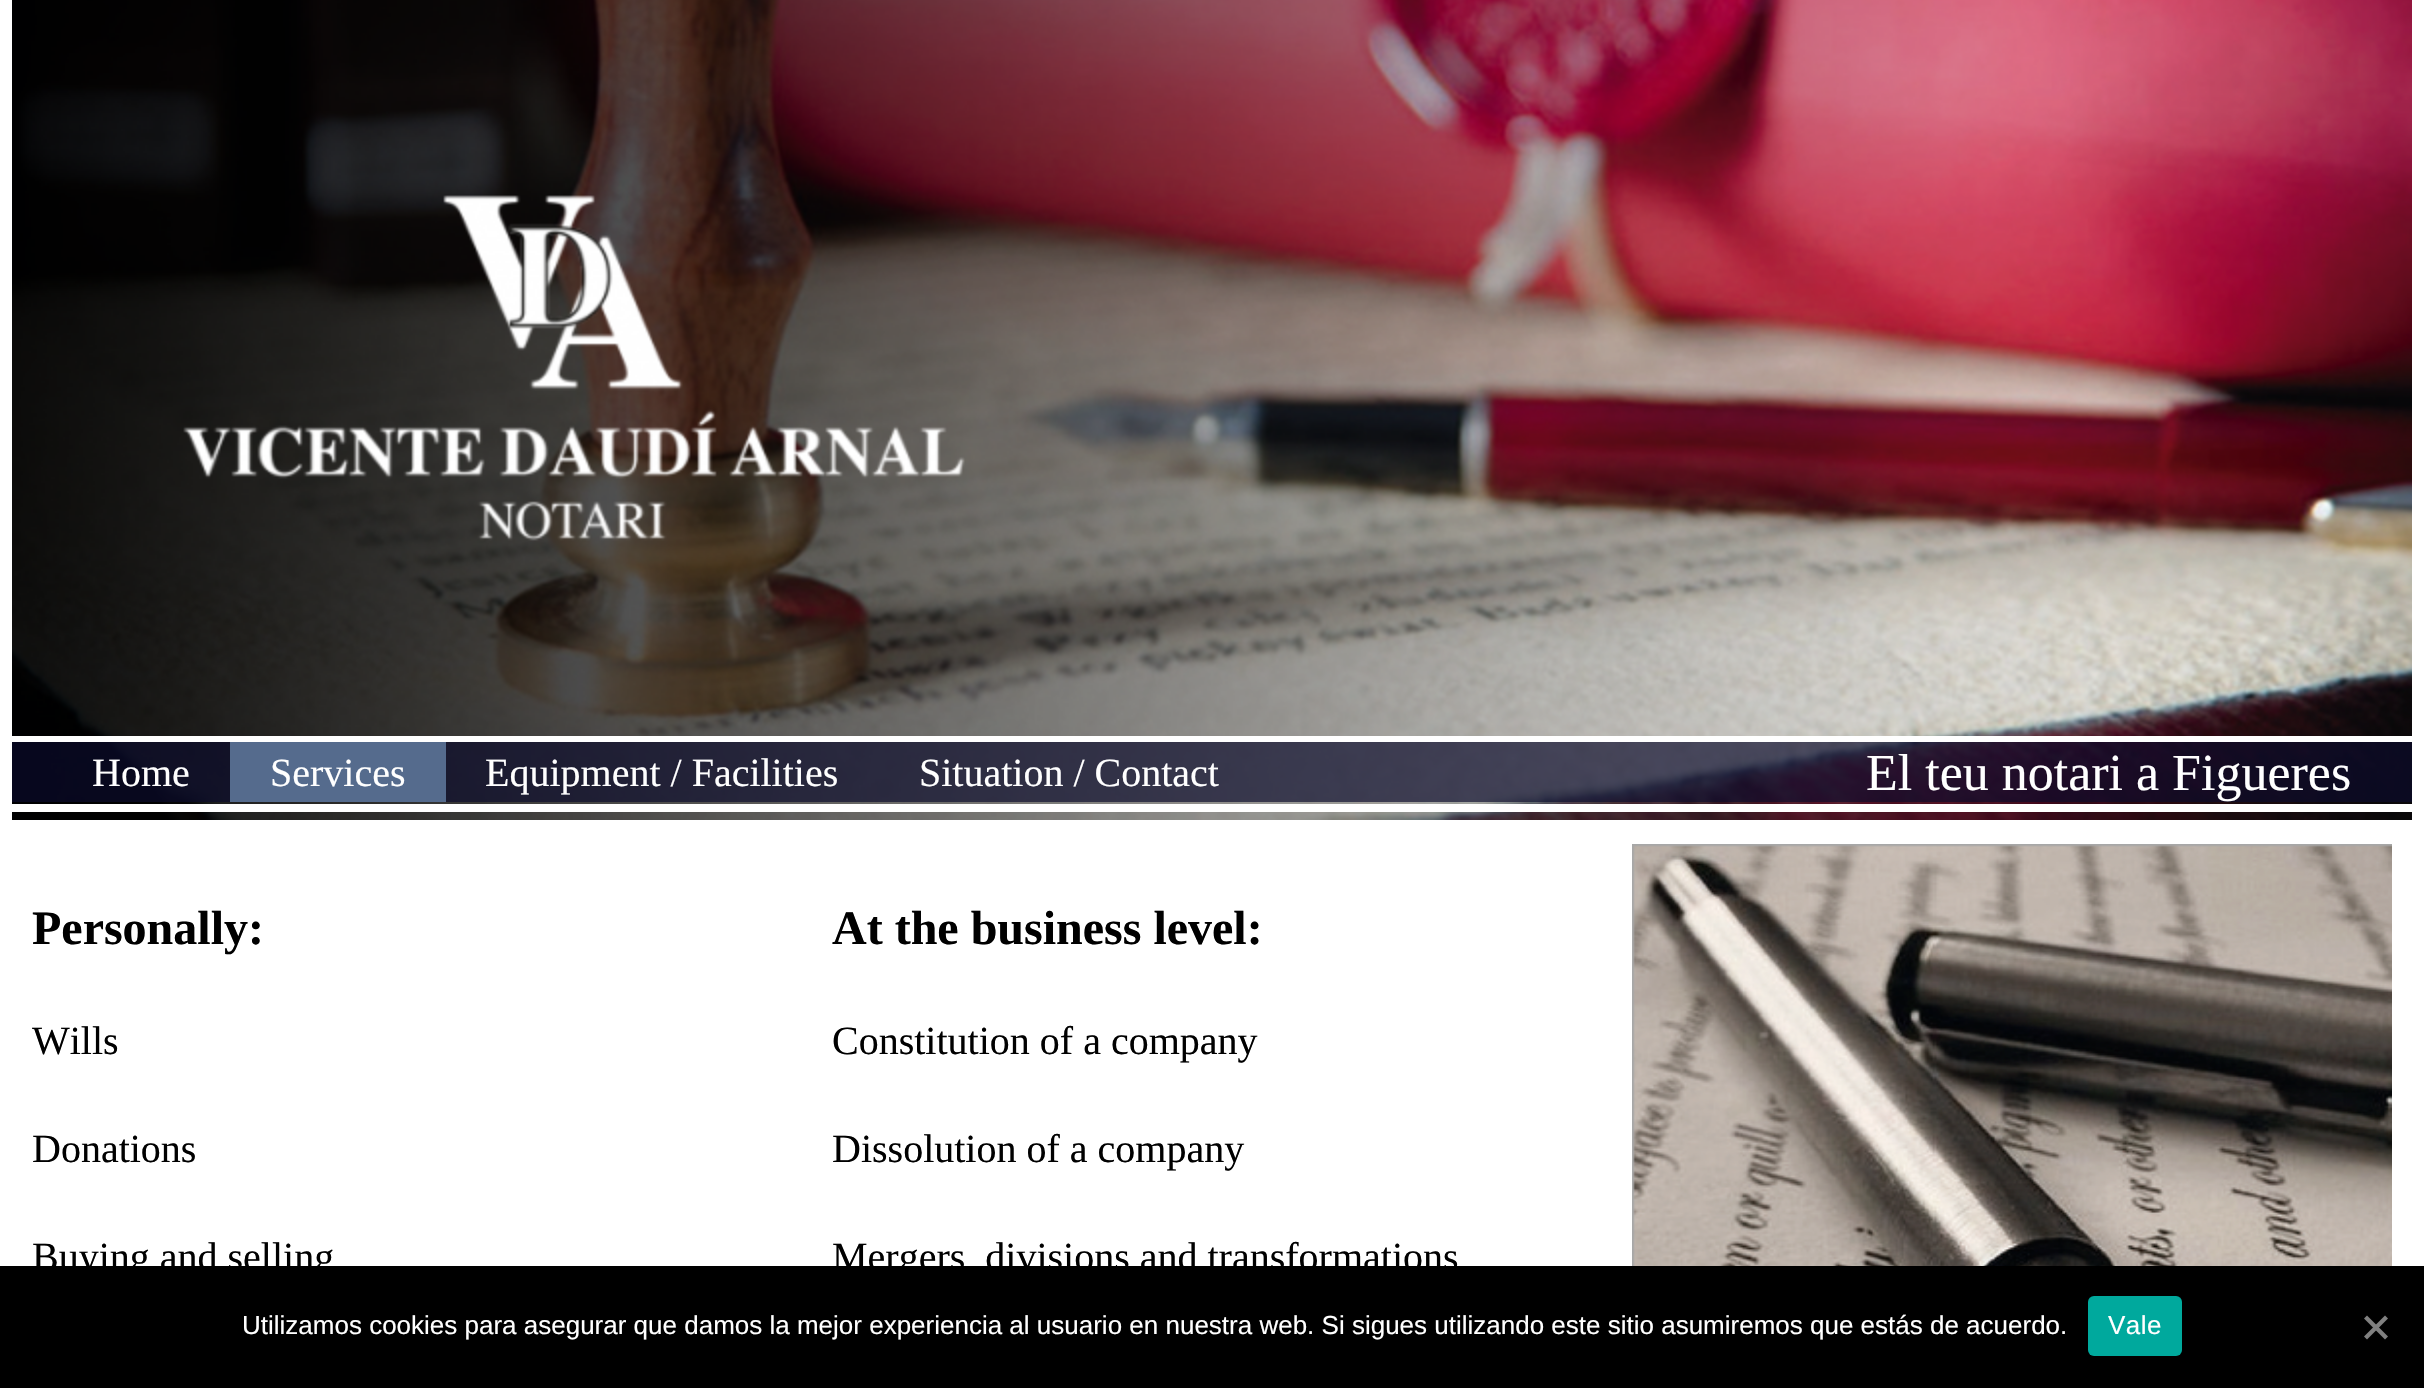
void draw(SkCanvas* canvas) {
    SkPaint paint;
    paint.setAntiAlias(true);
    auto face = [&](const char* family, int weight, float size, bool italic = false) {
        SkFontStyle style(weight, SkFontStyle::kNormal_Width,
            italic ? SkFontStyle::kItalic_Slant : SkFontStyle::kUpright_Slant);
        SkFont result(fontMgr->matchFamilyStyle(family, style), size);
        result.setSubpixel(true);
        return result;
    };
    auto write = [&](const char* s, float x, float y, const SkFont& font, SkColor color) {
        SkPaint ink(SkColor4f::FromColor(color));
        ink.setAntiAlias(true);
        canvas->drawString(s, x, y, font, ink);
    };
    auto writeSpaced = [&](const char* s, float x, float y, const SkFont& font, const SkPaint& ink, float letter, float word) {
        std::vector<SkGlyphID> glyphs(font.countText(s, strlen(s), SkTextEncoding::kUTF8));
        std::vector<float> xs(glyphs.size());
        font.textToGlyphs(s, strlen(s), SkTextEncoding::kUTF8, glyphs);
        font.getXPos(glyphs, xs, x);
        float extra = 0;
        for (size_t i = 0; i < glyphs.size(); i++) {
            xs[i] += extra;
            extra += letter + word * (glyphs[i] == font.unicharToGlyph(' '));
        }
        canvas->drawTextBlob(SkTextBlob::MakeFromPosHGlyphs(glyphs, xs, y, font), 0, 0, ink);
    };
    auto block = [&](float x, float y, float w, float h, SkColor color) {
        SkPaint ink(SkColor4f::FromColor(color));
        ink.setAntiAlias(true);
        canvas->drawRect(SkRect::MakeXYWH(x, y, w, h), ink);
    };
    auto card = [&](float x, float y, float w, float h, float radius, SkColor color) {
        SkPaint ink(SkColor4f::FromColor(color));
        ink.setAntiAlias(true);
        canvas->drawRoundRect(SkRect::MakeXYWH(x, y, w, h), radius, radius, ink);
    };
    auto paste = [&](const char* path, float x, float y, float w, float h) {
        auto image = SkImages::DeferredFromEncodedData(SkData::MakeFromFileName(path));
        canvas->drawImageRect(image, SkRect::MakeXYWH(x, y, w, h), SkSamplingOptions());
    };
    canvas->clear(SK_ColorWHITE);
    paste("pic1.png", 12, 0, 2400, 820);
    paste("pic2.png", 183, 195, 782, 346);
    block(12, 736, 2400, 6, SK_ColorWHITE);
    block(12, 742, 2400, 60, SkColorSetARGB(171, 11, 11, 43));
    block(12, 804, 2400, 8, SK_ColorWHITE);
    auto kFont1 = face("Liberation Serif", 400, 40);
    write("Home", 92, 786, kFont1, SK_ColorWHITE);
    block(230, 742, 216, 60, SkColorSetRGB(85, 107, 141));
    write("Services", 270, 786, kFont1, SK_ColorWHITE);
    write("Equipment / Facilities", 485, 786, kFont1, SK_ColorWHITE);
    write("Situation / Contact", 919, 786, kFont1, SK_ColorWHITE);
    auto kFont2 = face("Liberation Serif", 400, 52);
    write("El teu notari a Figueres", 1866, 790, kFont2, SK_ColorWHITE);
    auto kFont3 = face("Liberation Serif", 700, 48);
    write("Personally:", 32, 944, kFont3, SK_ColorBLACK);
    write("Wills", 32, 1054, kFont1, SK_ColorBLACK);
    write("Donations", 32, 1162, kFont1, SK_ColorBLACK);
    write("Buying and selling", 32, 1270, kFont1, SK_ColorBLACK);
    write("At the business level:", 832, 944, kFont3, SK_ColorBLACK);
    write("Constitution of a company", 832, 1054, kFont1, SK_ColorBLACK);
    write("Dissolution of a company", 832, 1162, kFont1, SK_ColorBLACK);
    write("Mergers, divisions and transformations", 832, 1270, kFont1, SK_ColorBLACK);
    paste("pic3.png", 1632, 844, 760, 422);
    block(0, 1266, 2424, 122, SK_ColorBLACK);
    auto kFont4 = face("Liberation Sans", 400, 26);
    write("Utilizamos cookies para asegurar que damos la mejor experiencia al usuario en nuestra web. Si sigues utilizando este sitio asumiremos que estás de acuerdo.", 242, 1334, kFont4, SK_ColorWHITE);
    card(2088, 1296, 94, 60, 6, SkColorSetRGB(0, 169, 157));
    paint.setColor(SK_ColorWHITE);
    writeSpaced("Vale", 2108, 1334, kFont4, paint, 0.5f, 0);
    paint.setColor(SkColorSetRGB(128, 128, 128));
    canvas->drawPath(SkPathBuilder().moveTo(2385, 1315.5f).lineTo(2388, 1318.5f).lineTo(2367, 1339.5f).lineTo(2364, 1336.5f).close().detach(), paint);
    canvas->drawPath(SkPathBuilder().moveTo(2364, 1318.5f).lineTo(2367, 1315.5f).lineTo(2388, 1336.5f).lineTo(2385, 1339.5f).close().detach(), paint);
}
